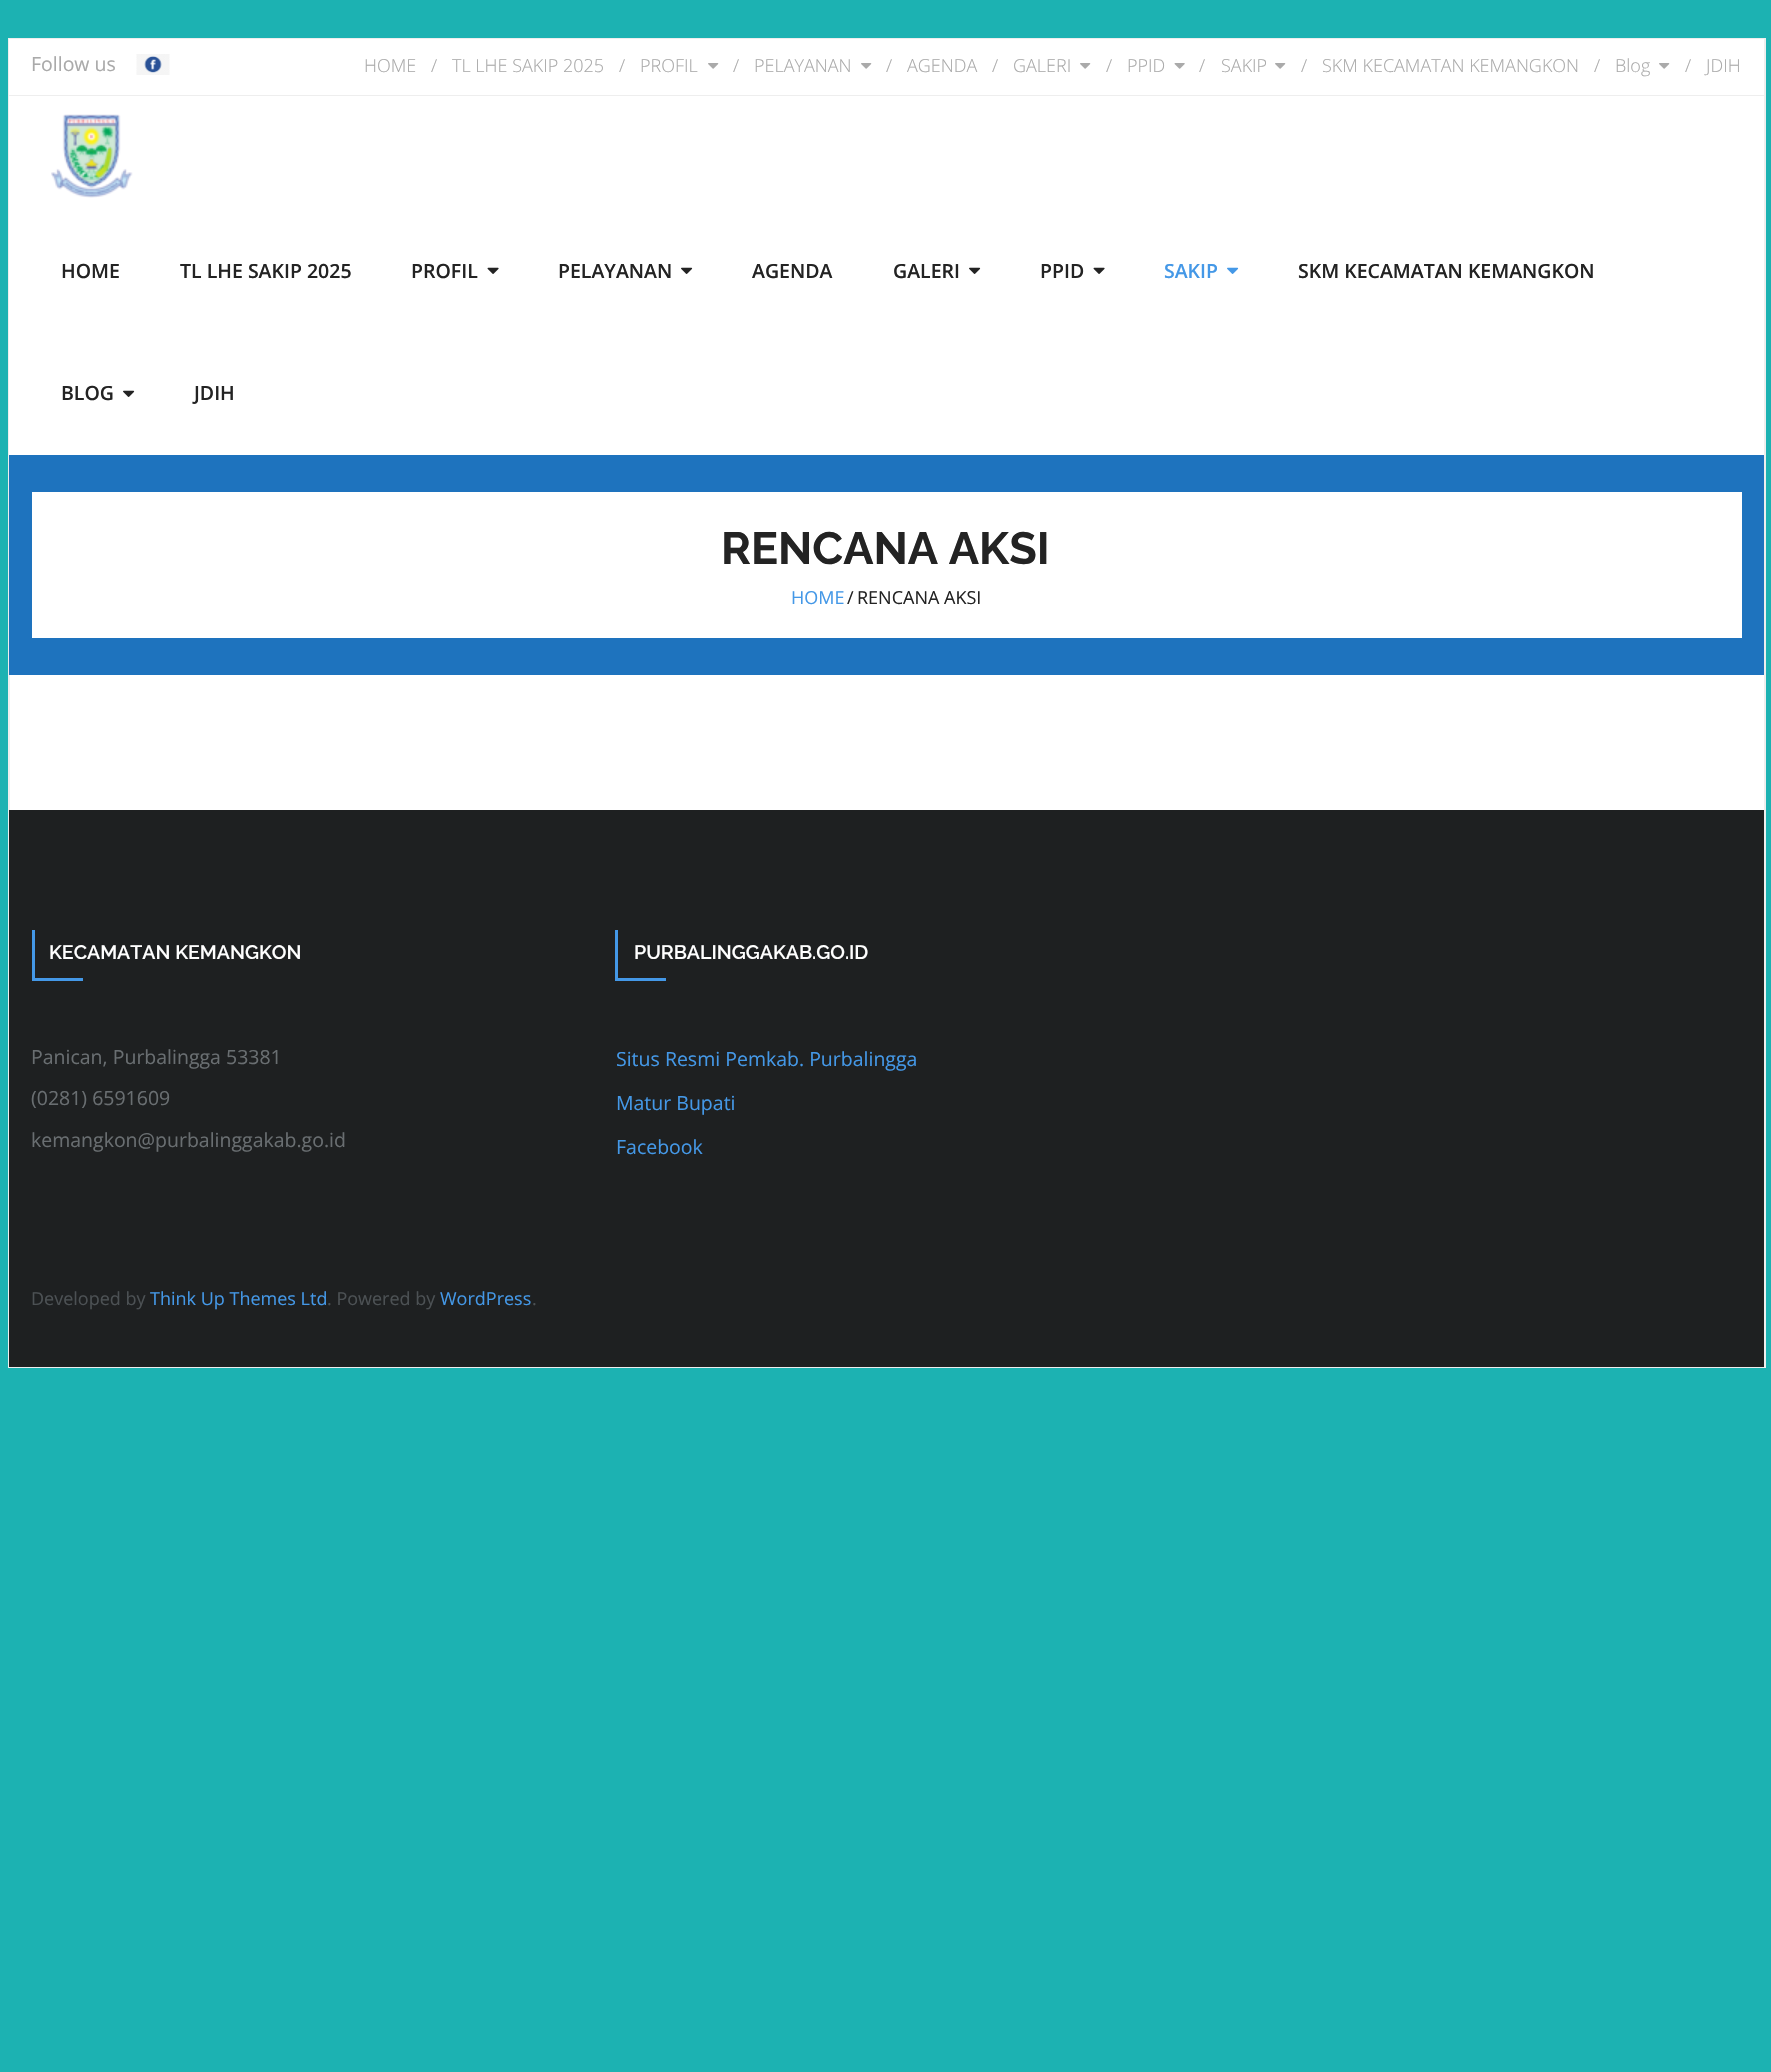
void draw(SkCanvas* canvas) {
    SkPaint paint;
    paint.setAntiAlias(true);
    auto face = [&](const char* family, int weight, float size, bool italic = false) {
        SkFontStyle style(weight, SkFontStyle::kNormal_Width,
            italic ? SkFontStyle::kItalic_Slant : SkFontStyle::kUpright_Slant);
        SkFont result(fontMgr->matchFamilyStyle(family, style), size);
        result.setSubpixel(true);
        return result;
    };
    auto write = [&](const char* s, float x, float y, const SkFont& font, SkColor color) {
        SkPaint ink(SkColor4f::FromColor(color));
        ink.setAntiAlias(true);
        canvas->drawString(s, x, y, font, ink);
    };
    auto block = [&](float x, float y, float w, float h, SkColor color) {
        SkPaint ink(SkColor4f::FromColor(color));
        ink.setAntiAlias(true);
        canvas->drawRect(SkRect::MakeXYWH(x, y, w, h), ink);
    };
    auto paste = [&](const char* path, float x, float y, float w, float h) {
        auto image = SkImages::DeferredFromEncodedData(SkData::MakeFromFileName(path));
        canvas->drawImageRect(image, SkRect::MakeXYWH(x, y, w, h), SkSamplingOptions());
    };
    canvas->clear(SkColorSetRGB(28, 178, 178));
    block(10, 675, 1754, 135, SK_ColorWHITE);
    paint.setStyle(SkPaint::kStroke_Style);
    paint.setStrokeWidth(2);
    paint.setColor(SkColorSetRGB(238, 238, 238));
    canvas->drawRect(SkRect::MakeXYWH(9, 39, 1756, 1328), paint);
    block(9, 39, 1755, 56, SK_ColorWHITE);
    block(9, 95, 1755, 1, SkColorSetRGB(238, 238, 238));
    auto kFont1 = face("Open Sans", 400, 19.5f);
    write("Follow us", 31, 71, kFont1, SkColorSetRGB(170, 170, 170));
    paste("pic1.png", 136, 54, 34, 21);
    auto kFont2 = face("Open Sans", 300, 18);
    write("HOME", 364, 72, kFont2, SkColorSetRGB(170, 170, 170));
    write("/", 431, 72, kFont2, SkColorSetRGB(170, 170, 170));
    write("TL LHE SAKIP 2025", 452, 72, kFont2, SkColorSetRGB(170, 170, 170));
    write("/", 619, 72, kFont2, SkColorSetRGB(170, 170, 170));
    write("PROFIL", 640, 72, kFont2, SkColorSetRGB(170, 170, 170));
    paste("pic2.png", 708, 63, 11, 6);
    write("/", 733, 72, kFont2, SkColorSetRGB(170, 170, 170));
    write("PELAYANAN", 754, 72, kFont2, SkColorSetRGB(170, 170, 170));
    paste("pic2.png", 861, 63, 11, 6);
    write("/", 886, 72, kFont2, SkColorSetRGB(170, 170, 170));
    write("AGENDA", 907, 72, kFont2, SkColorSetRGB(170, 170, 170));
    write("/", 992, 72, kFont2, SkColorSetRGB(170, 170, 170));
    write("GALERI", 1013, 72, kFont2, SkColorSetRGB(170, 170, 170));
    paste("pic2.png", 1080, 63, 11, 6);
    write("/", 1106, 72, kFont2, SkColorSetRGB(170, 170, 170));
    write("PPID", 1127, 72, kFont2, SkColorSetRGB(170, 170, 170));
    paste("pic3.png", 1174, 63, 11, 6);
    write("/", 1199, 72, kFont2, SkColorSetRGB(170, 170, 170));
    write("SAKIP", 1221, 72, kFont2, SkColorSetRGB(170, 170, 170));
    paste("pic2.png", 1275, 63, 11, 6);
    write("/", 1301, 72, kFont2, SkColorSetRGB(170, 170, 170));
    write("SKM KECAMATAN KEMANGKON", 1322, 72, kFont2, SkColorSetRGB(170, 170, 170));
    write("/", 1594, 72, kFont2, SkColorSetRGB(170, 170, 170));
    write("Blog", 1615, 72, kFont2, SkColorSetRGB(170, 170, 170));
    paste("pic2.png", 1659, 63, 11, 6);
    write("/", 1685, 72, kFont2, SkColorSetRGB(170, 170, 170));
    write("JDIH", 1706, 72, kFont2, SkColorSetRGB(170, 170, 170));
    block(9, 96, 1755, 359, SK_ColorWHITE);
    paste("pic4.png", 51, 114, 82, 84);
    auto kFont3 = face("Open Sans", 600, 19.5f);
    write("HOME", 61, 278, kFont3, SkColorSetRGB(35, 35, 35));
    write("TL LHE SAKIP 2025", 180, 278, kFont3, SkColorSetRGB(35, 35, 35));
    write("PROFIL", 411, 278, kFont3, SkColorSetRGB(35, 35, 35));
    paste("pic5.png", 487, 267, 12, 7);
    write("PELAYANAN", 558, 278, kFont3, SkColorSetRGB(35, 35, 35));
    paste("pic6.png", 681, 267, 12, 7);
    write("AGENDA", 752, 278, kFont3, SkColorSetRGB(35, 35, 35));
    write("GALERI", 893, 278, kFont3, SkColorSetRGB(35, 35, 35));
    paste("pic6.png", 969, 267, 12, 7);
    write("PPID", 1040, 278, kFont3, SkColorSetRGB(35, 35, 35));
    paste("pic5.png", 1093, 267, 12, 7);
    write("SAKIP", 1164, 278, kFont3, SkColorSetRGB(68, 152, 231));
    paste("pic7.png", 1227, 267, 12, 7);
    write("SKM KECAMATAN KEMANGKON", 1298, 278, kFont3, SkColorSetRGB(35, 35, 35));
    write("BLOG", 61, 400, kFont3, SkColorSetRGB(35, 35, 35));
    paste("pic6.png", 123, 390, 12, 7);
    write("JDIH", 194, 400, kFont3, SkColorSetRGB(35, 35, 35));
    block(9, 455, 1755, 220, SkColorSetRGB(30, 115, 190));
    block(32, 492, 1710, 146, SK_ColorWHITE);
    auto kFont4 = face("Raleway", 700, 45);
    write("RENCANA AKSI", 721, 564, kFont4, SkColorSetRGB(35, 35, 35));
    auto kFont5 = face("Open Sans", 400, 18);
    write("HOME", 791, 604, kFont5, SkColorSetRGB(68, 152, 231));
    write("/", 847, 604, kFont5, SkColorSetRGB(35, 35, 35));
    write("RENCANA AKSI", 857, 604, kFont5, SkColorSetRGB(35, 35, 35));
    block(9, 810, 1755, 557, SkColorSetRGB(30, 32, 33));
    block(32, 978, 51, 3, SkColorSetRGB(68, 152, 231));
    block(32, 930, 3, 51, SkColorSetRGB(68, 152, 231));
    auto kFont6 = face("Raleway", 600, 19.5f);
    write("KECAMATAN KEMANGKON", 49, 959, kFont6, SK_ColorWHITE);
    write("Panican, Purbalingga 53381", 31, 1064, kFont1, SkColorSetRGB(105, 110, 113));
    write("(0281) 6591609", 31, 1105, kFont1, SkColorSetRGB(105, 110, 113));
    write("kemangkon@purbalinggakab.go.id", 31, 1147, kFont1, SkColorSetRGB(105, 110, 113));
    block(615, 978, 51, 3, SkColorSetRGB(68, 152, 231));
    block(615, 930, 3, 51, SkColorSetRGB(68, 152, 231));
    write("PURBALINGGAKAB.GO.ID", 634, 959, kFont6, SK_ColorWHITE);
    write("Situs Resmi Pemkab. Purbalingga", 616, 1066, kFont1, SkColorSetRGB(68, 152, 231));
    write("Matur Bupati", 616, 1110, kFont1, SkColorSetRGB(68, 152, 231));
    write("Facebook", 616, 1154, kFont1, SkColorSetRGB(68, 152, 231));
    write("Developed by", 31, 1305, kFont5, SkColorSetRGB(76, 81, 84));
    write("Think Up Themes Ltd", 150, 1305, kFont5, SkColorSetRGB(68, 152, 231));
    write(". Powered by", 327, 1305, kFont5, SkColorSetRGB(76, 81, 84));
    write("WordPress", 440, 1305, kFont5, SkColorSetRGB(68, 152, 231));
    write(".", 532, 1305, kFont5, SkColorSetRGB(76, 81, 84));
}
